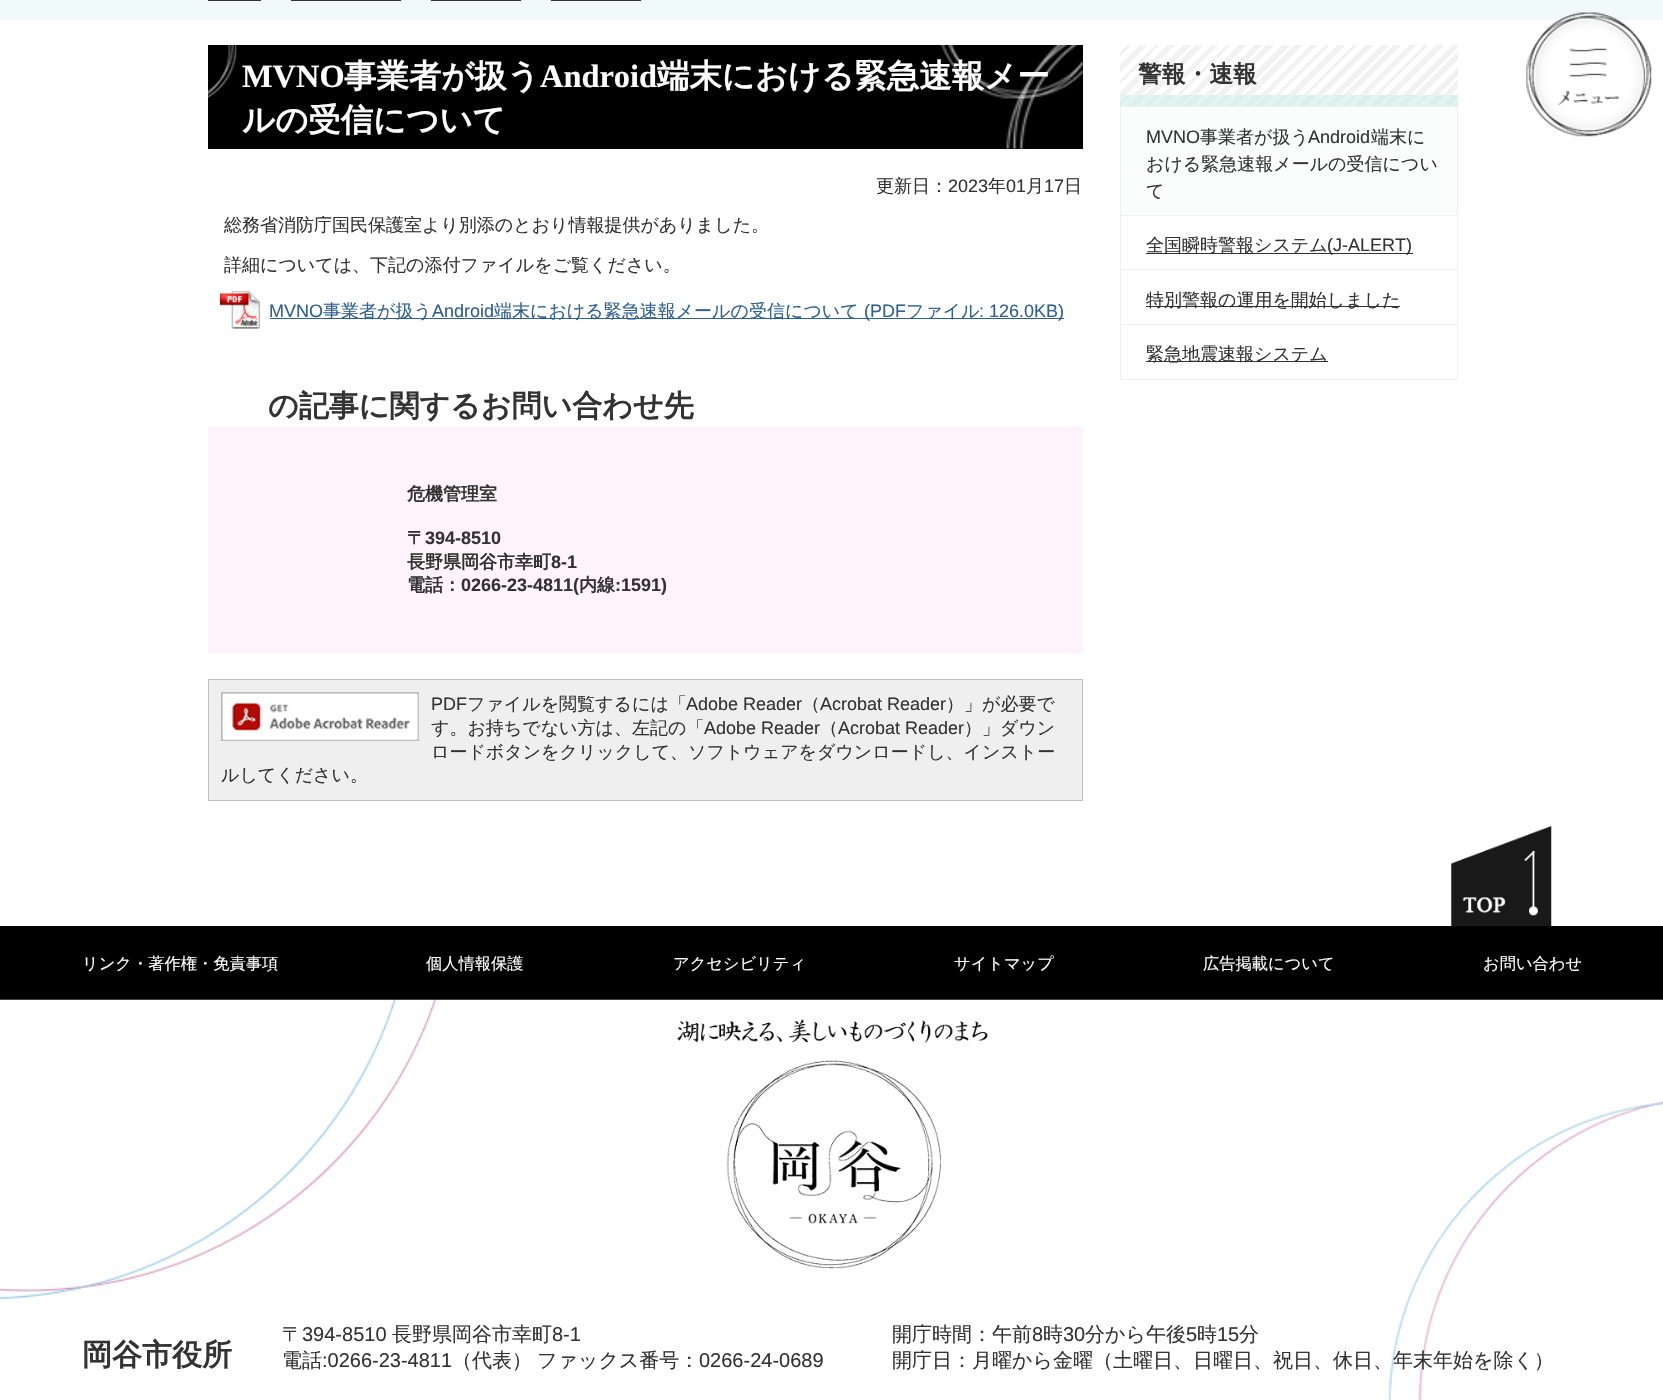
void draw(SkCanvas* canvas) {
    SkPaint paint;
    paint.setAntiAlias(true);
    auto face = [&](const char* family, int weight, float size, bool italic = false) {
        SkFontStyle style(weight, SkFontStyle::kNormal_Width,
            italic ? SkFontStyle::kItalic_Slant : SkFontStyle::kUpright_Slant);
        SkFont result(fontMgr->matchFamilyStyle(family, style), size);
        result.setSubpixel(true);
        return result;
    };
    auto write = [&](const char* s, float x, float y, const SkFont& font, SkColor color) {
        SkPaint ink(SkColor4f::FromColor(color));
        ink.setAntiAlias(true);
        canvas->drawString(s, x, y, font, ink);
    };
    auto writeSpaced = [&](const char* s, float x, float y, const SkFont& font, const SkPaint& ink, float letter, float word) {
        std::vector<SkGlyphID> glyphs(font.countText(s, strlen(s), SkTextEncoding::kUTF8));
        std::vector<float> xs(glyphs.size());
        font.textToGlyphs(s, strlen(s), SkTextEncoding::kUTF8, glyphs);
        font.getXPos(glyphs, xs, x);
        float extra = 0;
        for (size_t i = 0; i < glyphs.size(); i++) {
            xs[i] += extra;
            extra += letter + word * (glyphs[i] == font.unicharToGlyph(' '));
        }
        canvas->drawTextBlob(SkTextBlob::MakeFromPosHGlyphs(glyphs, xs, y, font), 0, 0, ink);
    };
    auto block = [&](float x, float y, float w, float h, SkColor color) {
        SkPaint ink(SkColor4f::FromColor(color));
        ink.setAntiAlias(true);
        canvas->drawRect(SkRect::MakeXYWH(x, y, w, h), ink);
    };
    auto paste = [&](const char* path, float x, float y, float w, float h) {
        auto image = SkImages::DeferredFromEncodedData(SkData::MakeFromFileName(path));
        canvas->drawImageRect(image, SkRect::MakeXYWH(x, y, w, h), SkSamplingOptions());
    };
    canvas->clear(SK_ColorWHITE);
    block(0, 0, 1663, 20, SkColorSetRGB(240, 250, 249));
    block(208, 0, 53, 1, SkColorSetRGB(51, 51, 51));
    block(291, 0, 110, 1, SkColorSetRGB(51, 51, 51));
    block(431, 0, 90, 1, SkColorSetRGB(51, 51, 51));
    block(551, 0, 90, 1, SkColorSetRGB(51, 51, 51));
    block(208, 45, 875, 104, SK_ColorBLACK);
    paste("pic1.png", 208, 45, 875, 104);
    auto kFont1 = face("Liberation Serif", 700, 32.4f);
    write("MVNO", 242, 87, kFont1, SK_ColorWHITE);
    auto kFont2 = face("WenQuanYi Zen Hei", 700, 32.4f);
    write("事業者が扱う", 344, 87, kFont2, SK_ColorWHITE);
    write("Android", 540, 87, kFont1, SK_ColorWHITE);
    write("端末における緊急速報メー", 657, 87, kFont2, SK_ColorWHITE);
    write("ルの受信について", 242, 131, kFont2, SK_ColorWHITE);
    auto kFont3 = face("WenQuanYi Zen Hei", 500, 18);
    write("更新日：", 876, 192, kFont3, SkColorSetRGB(51, 51, 51));
    auto kFont4 = face("Liberation Sans", 400, 18);
    write("2023", 948, 192, kFont4, SkColorSetRGB(51, 51, 51));
    write("年", 988, 192, kFont3, SkColorSetRGB(51, 51, 51));
    write("01", 1006, 192, kFont4, SkColorSetRGB(51, 51, 51));
    write("月", 1026, 192, kFont3, SkColorSetRGB(51, 51, 51));
    write("17", 1044, 192, kFont4, SkColorSetRGB(51, 51, 51));
    write("日", 1064, 192, kFont3, SkColorSetRGB(51, 51, 51));
    write("総務省消防庁国民保護室より別添のとおり情報提供がありました。", 224, 231, kFont3, SkColorSetRGB(51, 51, 51));
    write("詳細については、下記の添付ファイルをご覧ください。", 224, 271, kFont3, SkColorSetRGB(51, 51, 51));
    paste("pic2.png", 220, 291, 40, 38);
    write("MVNO", 269, 317, kFont4, SkColorSetRGB(45, 95, 146));
    block(270, 318, 794, 1, SkColorSetRGB(45, 95, 146));
    write("事業者が扱う", 323, 317, kFont3, SkColorSetRGB(45, 95, 146));
    write("Android", 432, 317, kFont4, SkColorSetRGB(45, 95, 146));
    write("端末における緊急速報メールの受信について", 494, 317, kFont3, SkColorSetRGB(45, 95, 146));
    write("(PDF", 864, 317, kFont4, SkColorSetRGB(45, 95, 146));
    write("ファイル", 906, 317, kFont3, SkColorSetRGB(45, 95, 146));
    write(": 126.0KB)", 979, 317, kFont4, SkColorSetRGB(45, 95, 146));
    auto kFont5 = face("Noto Sans", 100, 60);
    write("こ", 207, 416, kFont5, SkColorSetRGB(166, 42, 97));
    auto kFont6 = face("WenQuanYi Zen Hei", 700, 30);
    write("の記事に関するお問い合わせ先", 268, 416, kFont6, SkColorSetRGB(51, 51, 51));
    block(208, 426, 875, 228, SkColorSetRGB(255, 244, 251));
    auto kFont7 = face("WenQuanYi Zen Hei", 700, 18);
    write("危機管理室", 407, 500, kFont7, SkColorSetRGB(51, 51, 51));
    write("〒", 407, 544, kFont7, SkColorSetRGB(51, 51, 51));
    auto kFont8 = face("Liberation Sans", 700, 18);
    write("394-8510", 425, 544, kFont8, SkColorSetRGB(51, 51, 51));
    write("長野県岡谷市幸町", 407, 568, kFont7, SkColorSetRGB(51, 51, 51));
    write("8-1", 551, 568, kFont8, SkColorSetRGB(51, 51, 51));
    write("電話：", 407, 591, kFont7, SkColorSetRGB(51, 51, 51));
    write("0266-23-4811(", 461, 591, kFont8, SkColorSetRGB(51, 51, 51));
    write("内線", 579, 591, kFont7, SkColorSetRGB(51, 51, 51));
    write(":1591)", 615, 591, kFont8, SkColorSetRGB(51, 51, 51));
    paint.setColor(SkColorSetRGB(239, 239, 239));
    canvas->drawRect(SkRect::MakeXYWH(208.5f, 679.5f, 874, 121), paint);
    paint.setStyle(SkPaint::kStroke_Style);
    paint.setStrokeWidth(1);
    paint.setColor(SkColorSetRGB(191, 191, 191));
    canvas->drawRect(SkRect::MakeXYWH(208.5f, 679.5f, 874, 121), paint);
    paste("pic3.png", 221, 692, 198, 49);
    write("PDF", 431, 710, kFont4, SkColorSetRGB(51, 51, 51));
    write("ファイルを閲覧するには「", 467, 710, kFont3, SkColorSetRGB(51, 51, 51));
    write("Adobe Reader", 686, 710, kFont4, SkColorSetRGB(51, 51, 51));
    write("（", 802, 710, kFont3, SkColorSetRGB(51, 51, 51));
    write("Acrobat Reader", 820, 710, kFont4, SkColorSetRGB(51, 51, 51));
    write("）」が必要で", 946, 710, kFont3, SkColorSetRGB(51, 51, 51));
    write("す。お持ちでない方は、左記の「", 431, 734, kFont3, SkColorSetRGB(51, 51, 51));
    write("Adobe Reader", 704, 734, kFont4, SkColorSetRGB(51, 51, 51));
    write("（", 820, 734, kFont3, SkColorSetRGB(51, 51, 51));
    write("Acrobat Reader", 838, 734, kFont4, SkColorSetRGB(51, 51, 51));
    write("）」ダウン", 964, 734, kFont3, SkColorSetRGB(51, 51, 51));
    write("ロードボタンをクリックして、ソフトウェアをダウンロードし、インストー", 431, 758, kFont3, SkColorSetRGB(51, 51, 51));
    write("ルしてください。", 221, 781, kFont3, SkColorSetRGB(51, 51, 51));
    paint.setStyle(SkPaint::kFill_Style);
    {
        const SkColor colors[] = {SK_ColorWHITE, SK_ColorWHITE, SkColorSetRGB(242, 242, 242), SkColorSetRGB(242, 242, 242), SK_ColorWHITE, SK_ColorWHITE, SkColorSetRGB(242, 242, 242), SkColorSetRGB(242, 242, 242), SK_ColorWHITE, SK_ColorWHITE, SkColorSetRGB(242, 242, 242), SkColorSetRGB(242, 242, 242), SK_ColorWHITE, SK_ColorWHITE, SkColorSetRGB(242, 242, 242), SkColorSetRGB(242, 242, 242), SK_ColorWHITE, SK_ColorWHITE, SkColorSetRGB(242, 242, 242), SkColorSetRGB(242, 242, 242), SK_ColorWHITE, SK_ColorWHITE, SkColorSetRGB(242, 242, 242), SkColorSetRGB(242, 242, 242), SK_ColorWHITE, SK_ColorWHITE, SkColorSetRGB(242, 242, 242), SkColorSetRGB(242, 242, 242), SK_ColorWHITE, SK_ColorWHITE, SkColorSetRGB(242, 242, 242), SkColorSetRGB(242, 242, 242), SK_ColorWHITE, SK_ColorWHITE, SkColorSetRGB(242, 242, 242), SkColorSetRGB(242, 242, 242), SK_ColorWHITE, SK_ColorWHITE, SkColorSetRGB(242, 242, 242), SkColorSetRGB(242, 242, 242), SK_ColorWHITE, SK_ColorWHITE, SkColorSetRGB(242, 242, 242), SkColorSetRGB(242, 242, 242), SK_ColorWHITE, SK_ColorWHITE, SkColorSetRGB(242, 242, 242), SkColorSetRGB(242, 242, 242), SK_ColorWHITE, SK_ColorWHITE, SkColorSetRGB(242, 242, 242), SkColorSetRGB(242, 242, 242), SK_ColorWHITE, SK_ColorWHITE, SkColorSetRGB(242, 242, 242), SkColorSetRGB(242, 242, 242), SK_ColorWHITE, SK_ColorWHITE, SkColorSetRGB(242, 242, 242), SkColorSetRGB(242, 242, 242), SK_ColorWHITE, SK_ColorWHITE, SkColorSetRGB(242, 242, 242), SkColorSetRGB(242, 242, 242), SK_ColorWHITE, SK_ColorWHITE, SkColorSetRGB(242, 242, 242), SkColorSetRGB(242, 242, 242), SK_ColorWHITE, SK_ColorWHITE, SkColorSetRGB(242, 242, 242), SkColorSetRGB(242, 242, 242), SK_ColorWHITE, SK_ColorWHITE, SkColorSetRGB(242, 242, 242), SkColorSetRGB(242, 242, 242), SK_ColorWHITE, SK_ColorWHITE, SkColorSetRGB(242, 242, 242), SkColorSetRGB(242, 242, 242), SK_ColorWHITE, SK_ColorWHITE, SkColorSetRGB(242, 242, 242), SkColorSetRGB(242, 242, 242), SK_ColorWHITE, SK_ColorWHITE, SkColorSetRGB(242, 242, 242), SkColorSetRGB(242, 242, 242), SK_ColorWHITE, SK_ColorWHITE, SkColorSetRGB(242, 242, 242), SkColorSetRGB(242, 242, 242), SK_ColorWHITE, SK_ColorWHITE, SkColorSetRGB(242, 242, 242), SkColorSetRGB(242, 242, 242), SK_ColorWHITE, SK_ColorWHITE, SkColorSetRGB(242, 242, 242), SkColorSetRGB(242, 242, 242), SK_ColorWHITE, SK_ColorWHITE, SkColorSetRGB(242, 242, 242), SkColorSetRGB(242, 242, 242), SK_ColorWHITE, SK_ColorWHITE, SkColorSetRGB(242, 242, 242), SkColorSetRGB(242, 242, 242), SK_ColorWHITE, SK_ColorWHITE, SkColorSetRGB(242, 242, 242), SkColorSetRGB(242, 242, 242)};
        const float stops[] = {0, 0.02f, 0.02f, 0.04f, 0.04f, 0.05f, 0.05f, 0.07f, 0.07f, 0.09f, 0.09f, 0.11f, 0.11f, 0.12f, 0.12f, 0.14f, 0.14f, 0.16f, 0.16f, 0.18f, 0.18f, 0.2f, 0.2f, 0.21f, 0.21f, 0.23f, 0.23f, 0.25f, 0.25f, 0.27f, 0.27f, 0.29f, 0.29f, 0.3f, 0.3f, 0.32f, 0.32f, 0.34f, 0.34f, 0.36f, 0.36f, 0.38f, 0.38f, 0.39f, 0.39f, 0.41f, 0.41f, 0.43f, 0.43f, 0.45f, 0.45f, 0.46f, 0.46f, 0.48f, 0.48f, 0.5f, 0.5f, 0.52f, 0.52f, 0.54f, 0.54f, 0.55f, 0.55f, 0.57f, 0.57f, 0.59f, 0.59f, 0.61f, 0.61f, 0.62f, 0.62f, 0.64f, 0.64f, 0.66f, 0.66f, 0.68f, 0.68f, 0.7f, 0.7f, 0.71f, 0.71f, 0.73f, 0.73f, 0.75f, 0.75f, 0.77f, 0.77f, 0.79f, 0.79f, 0.8f, 0.8f, 0.82f, 0.82f, 0.84f, 0.84f, 0.86f, 0.86f, 0.88f, 0.88f, 0.89f, 0.89f, 0.91f, 0.91f, 0.93f, 0.93f, 0.95f, 0.95f, 0.96f, 0.96f, 0.98f, 0.98f, 1};
        const SkPoint ends[] = {{1386, 167}, {1188, -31}};
        paint.setShader(SkGradientShader::MakeLinear(ends, colors, stops, 112, SkTileMode::kClamp));
        paint.setAlpha(255);
    }
    canvas->drawRect(SkRect::MakeXYWH(1120, 45, 338, 50), paint);
    {
        const SkColor colors[] = {SkColorSetRGB(226, 245, 241), SkColorSetRGB(226, 245, 241), SkColorSetRGB(219, 239, 235), SkColorSetRGB(219, 239, 235), SkColorSetRGB(226, 245, 241), SkColorSetRGB(226, 245, 241), SkColorSetRGB(219, 239, 235), SkColorSetRGB(219, 239, 235), SkColorSetRGB(226, 245, 241), SkColorSetRGB(226, 245, 241), SkColorSetRGB(219, 239, 235), SkColorSetRGB(219, 239, 235), SkColorSetRGB(226, 245, 241), SkColorSetRGB(226, 245, 241), SkColorSetRGB(219, 239, 235), SkColorSetRGB(219, 239, 235), SkColorSetRGB(226, 245, 241), SkColorSetRGB(226, 245, 241), SkColorSetRGB(219, 239, 235), SkColorSetRGB(219, 239, 235), SkColorSetRGB(226, 245, 241), SkColorSetRGB(226, 245, 241), SkColorSetRGB(219, 239, 235), SkColorSetRGB(219, 239, 235), SkColorSetRGB(226, 245, 241), SkColorSetRGB(226, 245, 241), SkColorSetRGB(219, 239, 235), SkColorSetRGB(219, 239, 235), SkColorSetRGB(226, 245, 241), SkColorSetRGB(226, 245, 241), SkColorSetRGB(219, 239, 235), SkColorSetRGB(219, 239, 235), SkColorSetRGB(226, 245, 241), SkColorSetRGB(226, 245, 241), SkColorSetRGB(219, 239, 235), SkColorSetRGB(219, 239, 235), SkColorSetRGB(226, 245, 241), SkColorSetRGB(226, 245, 241), SkColorSetRGB(219, 239, 235), SkColorSetRGB(219, 239, 235), SkColorSetRGB(226, 245, 241), SkColorSetRGB(226, 245, 241), SkColorSetRGB(219, 239, 235), SkColorSetRGB(219, 239, 235), SkColorSetRGB(226, 245, 241), SkColorSetRGB(226, 245, 241), SkColorSetRGB(219, 239, 235), SkColorSetRGB(219, 239, 235), SkColorSetRGB(226, 245, 241), SkColorSetRGB(226, 245, 241), SkColorSetRGB(219, 239, 235), SkColorSetRGB(219, 239, 235), SkColorSetRGB(226, 245, 241), SkColorSetRGB(226, 245, 241), SkColorSetRGB(219, 239, 235), SkColorSetRGB(219, 239, 235), SkColorSetRGB(226, 245, 241), SkColorSetRGB(226, 245, 241), SkColorSetRGB(219, 239, 235), SkColorSetRGB(219, 239, 235), SkColorSetRGB(226, 245, 241), SkColorSetRGB(226, 245, 241), SkColorSetRGB(219, 239, 235), SkColorSetRGB(219, 239, 235), SkColorSetRGB(226, 245, 241), SkColorSetRGB(226, 245, 241), SkColorSetRGB(219, 239, 235), SkColorSetRGB(219, 239, 235), SkColorSetRGB(226, 245, 241), SkColorSetRGB(226, 245, 241), SkColorSetRGB(219, 239, 235), SkColorSetRGB(219, 239, 235), SkColorSetRGB(226, 245, 241), SkColorSetRGB(226, 245, 241), SkColorSetRGB(219, 239, 235), SkColorSetRGB(219, 239, 235), SkColorSetRGB(226, 245, 241), SkColorSetRGB(226, 245, 241), SkColorSetRGB(219, 239, 235), SkColorSetRGB(219, 239, 235), SkColorSetRGB(226, 245, 241), SkColorSetRGB(226, 245, 241), SkColorSetRGB(219, 239, 235), SkColorSetRGB(219, 239, 235), SkColorSetRGB(226, 245, 241), SkColorSetRGB(226, 245, 241), SkColorSetRGB(219, 239, 235), SkColorSetRGB(219, 239, 235), SkColorSetRGB(226, 245, 241), SkColorSetRGB(226, 245, 241), SkColorSetRGB(219, 239, 235), SkColorSetRGB(219, 239, 235), SkColorSetRGB(226, 245, 241), SkColorSetRGB(226, 245, 241), SkColorSetRGB(219, 239, 235), SkColorSetRGB(219, 239, 235), SkColorSetRGB(226, 245, 241), SkColorSetRGB(226, 245, 241), SkColorSetRGB(219, 239, 235), SkColorSetRGB(219, 239, 235), SkColorSetRGB(226, 245, 241), SkColorSetRGB(226, 245, 241), SkColorSetRGB(219, 239, 235), SkColorSetRGB(219, 239, 235), SkColorSetRGB(226, 245, 241), SkColorSetRGB(226, 245, 241), SkColorSetRGB(219, 239, 235), SkColorSetRGB(219, 239, 235), SkColorSetRGB(226, 245, 241), SkColorSetRGB(226, 245, 241), SkColorSetRGB(219, 239, 235), SkColorSetRGB(219, 239, 235)};
        const float stops[] = {0, 0.02f, 0.02f, 0.04f, 0.04f, 0.05f, 0.05f, 0.07f, 0.07f, 0.09f, 0.09f, 0.11f, 0.11f, 0.12f, 0.12f, 0.14f, 0.14f, 0.16f, 0.16f, 0.18f, 0.18f, 0.2f, 0.2f, 0.21f, 0.21f, 0.23f, 0.23f, 0.25f, 0.25f, 0.27f, 0.27f, 0.29f, 0.29f, 0.3f, 0.3f, 0.32f, 0.32f, 0.34f, 0.34f, 0.36f, 0.36f, 0.38f, 0.38f, 0.39f, 0.39f, 0.41f, 0.41f, 0.43f, 0.43f, 0.45f, 0.45f, 0.46f, 0.46f, 0.48f, 0.48f, 0.5f, 0.5f, 0.52f, 0.52f, 0.54f, 0.54f, 0.55f, 0.55f, 0.57f, 0.57f, 0.59f, 0.59f, 0.61f, 0.61f, 0.62f, 0.62f, 0.64f, 0.64f, 0.66f, 0.66f, 0.68f, 0.68f, 0.7f, 0.7f, 0.71f, 0.71f, 0.73f, 0.73f, 0.75f, 0.75f, 0.77f, 0.77f, 0.79f, 0.79f, 0.8f, 0.8f, 0.82f, 0.82f, 0.84f, 0.84f, 0.86f, 0.86f, 0.88f, 0.88f, 0.89f, 0.89f, 0.91f, 0.91f, 0.93f, 0.93f, 0.95f, 0.95f, 0.96f, 0.96f, 0.98f, 0.98f, 1};
        const SkPoint ends[] = {{1386, 217}, {1188, 19}};
        paint.setShader(SkGradientShader::MakeLinear(ends, colors, stops, 112, SkTileMode::kClamp));
        paint.setAlpha(255);
    }
    canvas->drawRect(SkRect::MakeXYWH(1120, 95, 338, 11), paint);
    auto kFont9 = face("WenQuanYi Zen Hei", 700, 23.75f);
    write("警報・速報", 1138, 82, kFont9, SkColorSetRGB(51, 51, 51));
    paint.setShader(nullptr);
    paint.setColor(SkColorSetRGB(249, 254, 253));
    canvas->drawRect(SkRect::MakeXYWH(1120.5f, 106.5f, 337, 109), paint);
    paint.setStyle(SkPaint::kStroke_Style);
    paint.setColor(SkColorSetRGB(240, 240, 240));
    canvas->drawRect(SkRect::MakeXYWH(1120.5f, 106.5f, 337, 109), paint);
    write("MVNO", 1146, 143, kFont4, SkColorSetRGB(51, 51, 51));
    write("事業者が扱う", 1200, 143, kFont3, SkColorSetRGB(51, 51, 51));
    write("Android", 1308, 143, kFont4, SkColorSetRGB(51, 51, 51));
    write("端末に", 1371, 143, kFont3, SkColorSetRGB(51, 51, 51));
    write("おける緊急速報メールの受信につい", 1146, 170, kFont3, SkColorSetRGB(51, 51, 51));
    write("て", 1146, 197, kFont3, SkColorSetRGB(51, 51, 51));
    canvas->drawRect(SkRect::MakeXYWH(1120.5f, 215.5f, 337, 54), paint);
    block(1146, 253, 267, 1, SkColorSetRGB(51, 51, 51));
    write("全国瞬時警報システム", 1146, 251, kFont3, SkColorSetRGB(51, 51, 51));
    write("(J-ALERT)", 1327, 251, kFont4, SkColorSetRGB(51, 51, 51));
    canvas->drawRect(SkRect::MakeXYWH(1120.5f, 269.5f, 337, 55), paint);
    block(1146, 306, 254, 1, SkColorSetRGB(51, 51, 51));
    write("特別警報の運用を開始しました", 1146, 306, kFont3, SkColorSetRGB(51, 51, 51));
    canvas->drawRect(SkRect::MakeXYWH(1120.5f, 324.5f, 337, 55), paint);
    block(1146, 361, 182, 1, SkColorSetRGB(51, 51, 51));
    write("緊急地震速報システム", 1146, 360, kFont3, SkColorSetRGB(51, 51, 51));
    paste("pic4.png", 1526, 12, 126, 125);
    paste("pic5.png", 1451, 826, 101, 100);
    block(0, 926, 1663, 74, SK_ColorBLACK);
    auto kFont10 = face("WenQuanYi Zen Hei", 500, 16.25f);
    write("リンク・著作権・免責事項", 82, 969, kFont10, SK_ColorWHITE);
    write("個人情報保護", 426, 969, kFont10, SK_ColorWHITE);
    write("アクセシビリティ", 673, 969, kFont10, SK_ColorWHITE);
    write("サイトマップ", 954, 969, kFont10, SK_ColorWHITE);
    write("広告掲載について", 1203, 969, kFont10, SK_ColorWHITE);
    write("お問い合わせ", 1483, 969, kFont10, SK_ColorWHITE);
    paste("pic6.png", 0, 999, 1663, 401);
    paste("pic7.png", 677, 1019, 311, 250);
    write("岡谷市役所", 82, 1365, kFont6, SkColorSetRGB(51, 51, 51));
    auto kFont11 = face("WenQuanYi Zen Hei", 500, 20);
    write("〒", 282, 1341, kFont11, SkColorSetRGB(51, 51, 51));
    auto kFont12 = face("Liberation Sans", 400, 20);
    write("394-8510", 302, 1341, kFont12, SkColorSetRGB(51, 51, 51));
    write("長野県岡谷市幸町", 392, 1341, kFont11, SkColorSetRGB(51, 51, 51));
    write("8-1", 552, 1341, kFont12, SkColorSetRGB(51, 51, 51));
    write("電話", 282, 1367, kFont11, SkColorSetRGB(51, 51, 51));
    write(":0266-23-4811", 322, 1367, kFont12, SkColorSetRGB(51, 51, 51));
    paint.setStyle(SkPaint::kFill_Style);
    paint.setColor(SkColorSetRGB(51, 51, 51));
    writeSpaced("（代表） ファックス番号：", 452, 1367, kFont11, paint, 0, -1);
    write("0266-24-0689", 699, 1367, kFont12, SkColorSetRGB(51, 51, 51));
    write("開庁時間：午前", 892, 1341, kFont11, SkColorSetRGB(51, 51, 51));
    write("8", 1032, 1341, kFont12, SkColorSetRGB(51, 51, 51));
    write("時", 1043, 1341, kFont11, SkColorSetRGB(51, 51, 51));
    write("30", 1063, 1341, kFont12, SkColorSetRGB(51, 51, 51));
    write("分から午後", 1085, 1341, kFont11, SkColorSetRGB(51, 51, 51));
    write("5", 1186, 1341, kFont12, SkColorSetRGB(51, 51, 51));
    write("時", 1197, 1341, kFont11, SkColorSetRGB(51, 51, 51));
    write("15", 1217, 1341, kFont12, SkColorSetRGB(51, 51, 51));
    write("分", 1239, 1341, kFont11, SkColorSetRGB(51, 51, 51));
    write("開庁日：月曜から金曜（土曜日、日曜日、祝日、休日、年末年始を除く）", 892, 1367, kFont11, SkColorSetRGB(51, 51, 51));
}
